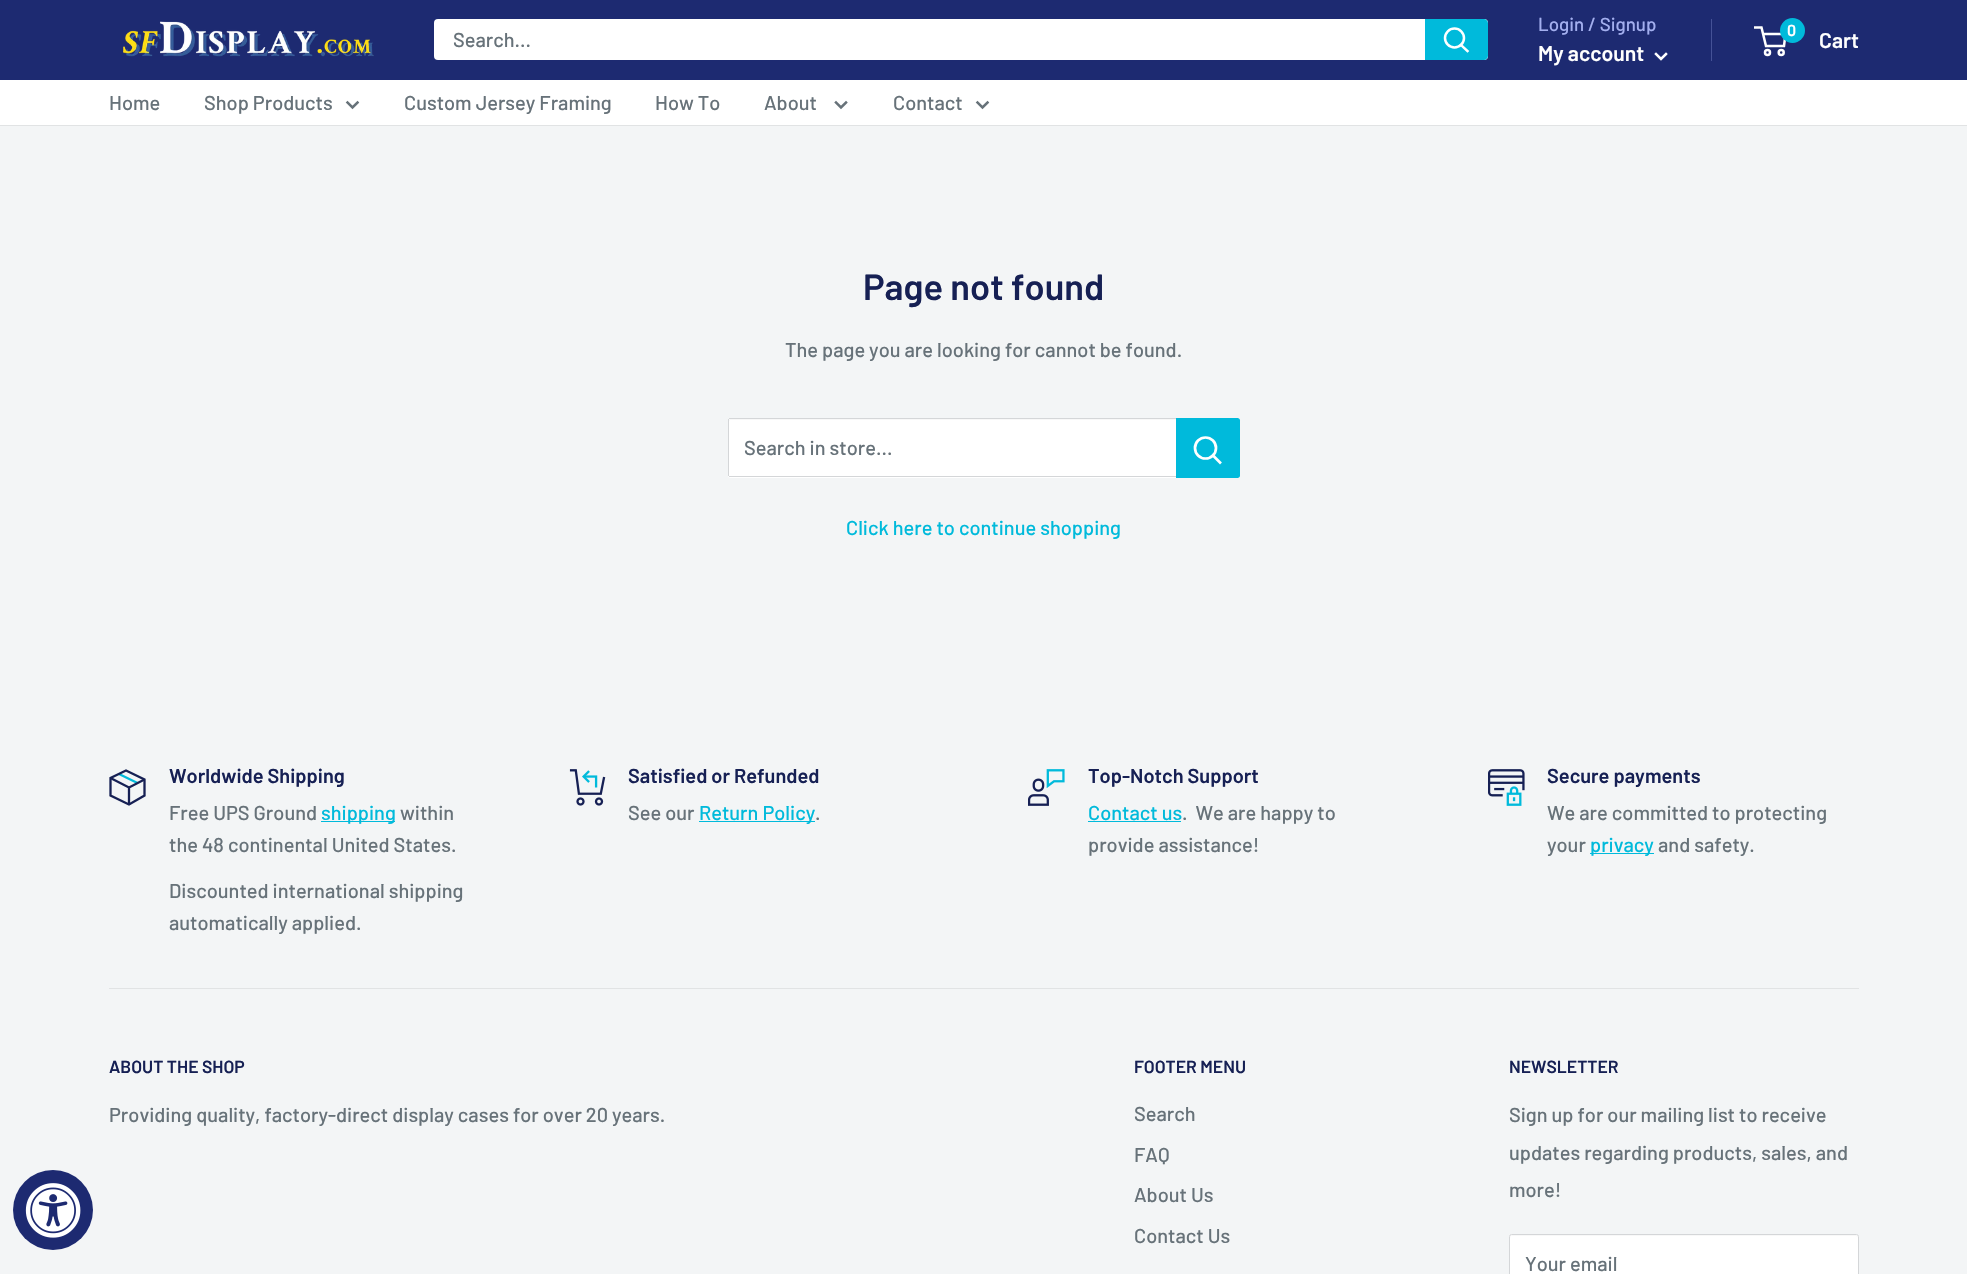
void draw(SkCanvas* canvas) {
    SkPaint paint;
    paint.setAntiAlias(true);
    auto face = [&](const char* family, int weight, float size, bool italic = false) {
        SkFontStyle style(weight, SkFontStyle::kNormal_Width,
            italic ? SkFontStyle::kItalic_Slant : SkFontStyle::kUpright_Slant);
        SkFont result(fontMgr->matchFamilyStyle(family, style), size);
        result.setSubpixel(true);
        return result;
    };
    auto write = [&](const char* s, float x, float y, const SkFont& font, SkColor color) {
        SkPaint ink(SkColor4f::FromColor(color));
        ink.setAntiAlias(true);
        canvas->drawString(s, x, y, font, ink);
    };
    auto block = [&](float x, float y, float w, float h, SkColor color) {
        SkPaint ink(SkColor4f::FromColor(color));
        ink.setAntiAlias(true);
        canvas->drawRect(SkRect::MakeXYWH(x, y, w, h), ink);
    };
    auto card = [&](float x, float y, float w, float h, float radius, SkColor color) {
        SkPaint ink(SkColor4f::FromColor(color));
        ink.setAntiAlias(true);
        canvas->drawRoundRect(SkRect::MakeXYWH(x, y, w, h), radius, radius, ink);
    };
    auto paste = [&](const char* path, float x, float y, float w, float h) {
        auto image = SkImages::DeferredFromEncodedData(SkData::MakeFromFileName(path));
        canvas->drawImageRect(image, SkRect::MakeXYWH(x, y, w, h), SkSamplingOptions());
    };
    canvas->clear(SkColorSetRGB(243, 245, 246));
    block(0, 0, 1967, 80, SkColorSetRGB(29, 42, 113));
    paste("pic1.png", 123, 21, 251, 36);
    card(434, 19, 1054, 41, 4, SK_ColorWHITE);
    auto kFont1 = face("Barlow", 500, 20);
    write("Search...", 453, 47, kFont1, SkColorSetRGB(103, 114, 121));
    paint.setColor(SkColorSetRGB(0, 186, 219));
    canvas->drawPath(SkPathBuilder().moveTo(1425, 19).lineTo(1484, 19).cubicTo(1486, 19, 1488, 21, 1488, 23).lineTo(1488, 56).cubicTo(1488, 58, 1486, 60, 1484, 60).lineTo(1425, 60).close().detach(), paint);
    paint.setStyle(SkPaint::kStroke_Style);
    paint.setStrokeWidth(2.5f);
    paint.setStrokeCap(SkPaint::kSquare_Cap);
    paint.setColor(SK_ColorWHITE);
    canvas->drawPath(SkPathBuilder().moveTo(1467.5f, 51).lineTo(1461, 45).detach(), paint);
    paint.setStrokeCap(SkPaint::kButt_Cap);
    canvas->drawCircle(1454.5f, 38, 9.5f, paint);
    auto kFont2 = face("Barlow", 500, 18.75f);
    write("Login / Signup", 1538, 31, kFont2, SkColorSetRGB(163, 175, 239));
    block(1711, 19, 1, 42, SkColorSetRGB(69, 82, 151));
    auto kFont3 = face("Barlow", 600, 21.25f);
    write("My account", 1538, 61, kFont3, SK_ColorWHITE);
    paint.setStrokeCap(SkPaint::kSquare_Cap);
    canvas->drawPath(SkPathBuilder().moveTo(1666, 54).lineTo(1661, 59).lineTo(1656, 54).detach(), paint);
    paint.setStrokeCap(SkPaint::kButt_Cap);
    canvas->drawCircle(1767.5f, 52.5f, 2.5f, paint);
    canvas->drawCircle(1781.2f, 52.5f, 2.5f, paint);
    canvas->drawPath(SkPathBuilder().moveTo(1763, 34).lineTo(1785.5f, 34).lineTo(1784, 46).lineTo(1766, 46).lineTo(1761.5f, 27.5f).lineTo(1754, 27.5f).detach(), paint);
    paint.setStyle(SkPaint::kFill_Style);
    paint.setColor(SkColorSetRGB(0, 186, 219));
    canvas->drawCircle(1792.5f, 30.5f, 12.5f, paint);
    auto kFont4 = face("Barlow", 600, 16);
    write("0", 1787, 36, kFont4, SK_ColorWHITE);
    write("Cart", 1819, 48, kFont3, SK_ColorWHITE);
    block(0, 80, 1967, 45, SK_ColorWHITE);
    block(0, 125, 1967, 1, SkColorSetRGB(225, 227, 228));
    write("Home", 109, 110, kFont1, SkColorSetRGB(103, 114, 121));
    write("Shop Products", 204, 110, kFont1, SkColorSetRGB(103, 114, 121));
    paint.setStyle(SkPaint::kStroke_Style);
    paint.setStrokeCap(SkPaint::kSquare_Cap);
    paint.setColor(SkColorSetRGB(103, 114, 121));
    canvas->drawPath(SkPathBuilder().moveTo(357.5f, 102.5f).lineTo(352.5f, 107.5f).lineTo(347.5f, 102.5f).detach(), paint);
    write("Custom Jersey Framing", 404, 110, kFont1, SkColorSetRGB(103, 114, 121));
    write("How To", 655, 110, kFont1, SkColorSetRGB(103, 114, 121));
    write("About", 764, 110, kFont1, SkColorSetRGB(103, 114, 121));
    canvas->drawPath(SkPathBuilder().moveTo(846, 102.5f).lineTo(841, 107.5f).lineTo(836, 102.5f).detach(), paint);
    write("Contact", 893, 110, kFont1, SkColorSetRGB(103, 114, 121));
    canvas->drawPath(SkPathBuilder().moveTo(987.5f, 102.5f).lineTo(982.5f, 107.5f).lineTo(977.5f, 102.5f).detach(), paint);
    auto kFont5 = face("Barlow", 600, 36.25f);
    write("Page not found", 863, 300, kFont5, SkColorSetRGB(22, 32, 84));
    write("The page you are looking for cannot be found.", 785, 357, kFont1, SkColorSetRGB(103, 114, 121));
    paint.setStyle(SkPaint::kFill_Style);
    paint.setColor(SK_ColorWHITE);
    canvas->drawPath(SkPathBuilder().moveTo(730.5f, 418).lineTo(1176, 418).lineTo(1176, 478).lineTo(730.5f, 478).cubicTo(729, 478, 728, 477, 728, 475.5f).lineTo(728, 420.5f).cubicTo(728, 419, 729, 418, 730.5f, 418).close().detach(), paint);
    paint.setColor(SkColorSetRGB(248, 248, 248));
    canvas->drawPath(SkPathBuilder().moveTo(730, 420).lineTo(1176, 420).lineTo(1176, 419).lineTo(730, 419).lineTo(729, 420).lineTo(729, 421).close().detach(), paint);
    block(729, 418, 447, 1, SkColorSetRGB(212, 214, 216));
    block(729, 476, 447, 1, SkColorSetRGB(212, 214, 216));
    block(728, 419, 1, 57, SkColorSetRGB(212, 214, 216));
    write("Search in store...", 744, 455, kFont1, SkColorSetRGB(103, 114, 121));
    paint.setColor(SkColorSetRGB(0, 186, 219));
    canvas->drawPath(SkPathBuilder().moveTo(1176, 418).lineTo(1237.5f, 418).cubicTo(1239, 418, 1240, 419, 1240, 420.5f).lineTo(1240, 475.5f).cubicTo(1240, 477, 1239, 478, 1237.5f, 478).lineTo(1176, 478).close().detach(), paint);
    paint.setStyle(SkPaint::kStroke_Style);
    paint.setStrokeWidth(2.7f);
    paint.setColor(SK_ColorWHITE);
    canvas->drawPath(SkPathBuilder().moveTo(1220, 462.5f).lineTo(1213, 455.5f).detach(), paint);
    paint.setStrokeCap(SkPaint::kButt_Cap);
    canvas->drawCircle(1205.5f, 448, 10.5f, paint);
    write("Click here to continue shopping", 846, 535, kFont1, SkColorSetRGB(0, 186, 219));
    paint.setStrokeWidth(2.3f);
    paint.setColor(SkColorSetRGB(0, 186, 219));
    canvas->drawPath(SkPathBuilder().moveTo(119, 774).lineTo(137.5f, 783).detach(), paint);
    paint.setColor(SkColorSetRGB(22, 32, 84));
    canvas->drawPath(SkPathBuilder().moveTo(144.5f, 779.5f).lineTo(129, 787.5f).lineTo(110.5f, 778).moveTo(129, 787.5f).lineTo(129, 804.5f).detach(), paint);
    paint.setStrokeCap(SkPaint::kSquare_Cap);
    canvas->drawPath(SkPathBuilder().moveTo(144.5f, 779.5f).lineTo(144.5f, 795.5f).lineTo(129, 804.5f).lineTo(110.5f, 795.5f).lineTo(110.5f, 778).lineTo(126, 770.5f).close().detach(), paint);
    auto kFont6 = face("Barlow", 600, 20);
    write("Worldwide Shipping", 169, 783, kFont6, SkColorSetRGB(22, 32, 84));
    write("Free UPS Ground", 169, 820, kFont1, SkColorSetRGB(103, 114, 121));
    block(321, 821, 74, 1, SkColorSetRGB(0, 186, 219));
    write("shipping", 321, 820, kFont1, SkColorSetRGB(0, 186, 219));
    write("within", 400, 820, kFont1, SkColorSetRGB(103, 114, 121));
    write("the 48 continental United States.", 169, 852, kFont1, SkColorSetRGB(103, 114, 121));
    write("Discounted international shipping", 169, 898, kFont1, SkColorSetRGB(103, 114, 121));
    write("automatically applied.", 169, 930, kFont1, SkColorSetRGB(103, 114, 121));
    paste("pic2.png", 569, 769, 37, 37);
    write("Satisfied or Refunded", 628, 783, kFont6, SkColorSetRGB(22, 32, 84));
    write("See our", 628, 820, kFont1, SkColorSetRGB(103, 114, 121));
    block(699, 821, 116, 1, SkColorSetRGB(0, 186, 219));
    write("Return Policy", 699, 820, kFont1, SkColorSetRGB(0, 186, 219));
    write(".", 815, 820, kFont1, SkColorSetRGB(103, 114, 121));
    paste("pic3.png", 1028, 769, 37, 37);
    write("Top-Notch Support", 1088, 783, kFont6, SkColorSetRGB(22, 32, 84));
    write("Contact us", 1088, 820, kFont1, SkColorSetRGB(0, 186, 219));
    block(1088, 821, 93, 1, SkColorSetRGB(0, 186, 219));
    write(".  We are happy to", 1182, 820, kFont1, SkColorSetRGB(103, 114, 121));
    write("provide assistance!", 1088, 852, kFont1, SkColorSetRGB(103, 114, 121));
    paste("pic4.png", 1488, 769, 37, 37);
    write("Secure payments", 1547, 783, kFont6, SkColorSetRGB(22, 32, 84));
    write("We are committed to protecting", 1547, 820, kFont1, SkColorSetRGB(103, 114, 121));
    write("your", 1547, 852, kFont1, SkColorSetRGB(103, 114, 121));
    block(1590, 853, 64, 1, SkColorSetRGB(0, 186, 219));
    write("privacy", 1590, 852, kFont1, SkColorSetRGB(0, 186, 219));
    write("and safety.", 1658, 852, kFont1, SkColorSetRGB(103, 114, 121));
    paint.setStyle(SkPaint::kFill_Style);
    paint.setColor(SkColorSetRGB(29, 42, 113));
    canvas->drawCircle(53, 1210, 40, paint);
    paste("pic5.png", 25, 1183, 56, 55);
    block(109, 988, 1750, 1, SkColorSetRGB(225, 227, 228));
    auto kFont7 = face("Barlow", 600, 17.5f);
    write("ABOUT THE SHOP", 109, 1073, kFont7, SkColorSetRGB(22, 32, 84));
    write("Providing quality, factory-direct display cases for over 20 years.", 109, 1122, kFont1, SkColorSetRGB(103, 114, 121));
    write("FOOTER MENU", 1134, 1073, kFont7, SkColorSetRGB(22, 32, 84));
    write("Search", 1134, 1121, kFont1, SkColorSetRGB(103, 114, 121));
    write("FAQ", 1134, 1162, kFont1, SkColorSetRGB(103, 114, 121));
    write("About Us", 1134, 1202, kFont1, SkColorSetRGB(103, 114, 121));
    write("Contact Us", 1134, 1243, kFont1, SkColorSetRGB(103, 114, 121));
    write("NEWSLETTER", 1509, 1073, kFont7, SkColorSetRGB(22, 32, 84));
    write("Sign up for our mailing list to receive", 1509, 1122, kFont1, SkColorSetRGB(103, 114, 121));
    write("updates regarding products, sales, and", 1509, 1160, kFont1, SkColorSetRGB(103, 114, 121));
    write("more!", 1509, 1197, kFont1, SkColorSetRGB(103, 114, 121));
    card(1509, 1234, 350, 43, 2.5f, SK_ColorWHITE);
    paint.setColor(SkColorSetRGB(248, 248, 248));
    canvas->drawPath(SkPathBuilder().moveTo(1511, 1236).lineTo(1856, 1236).cubicTo(1857, 1236, 1858, 1237, 1858, 1238).cubicTo(1858, 1237, 1858, 1235, 1857, 1235).lineTo(1510, 1235).lineTo(1510, 1238).close().detach(), paint);
    paint.setStyle(SkPaint::kStroke_Style);
    paint.setStrokeWidth(1);
    paint.setStrokeCap(SkPaint::kButt_Cap);
    paint.setColor(SkColorSetRGB(212, 214, 216));
    canvas->drawRoundRect(SkRect::MakeXYWH(1509.5f, 1234.5f, 349, 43), 2, 2, paint);
    write("Your email", 1525, 1271, kFont1, SkColorSetRGB(103, 114, 121));
}
